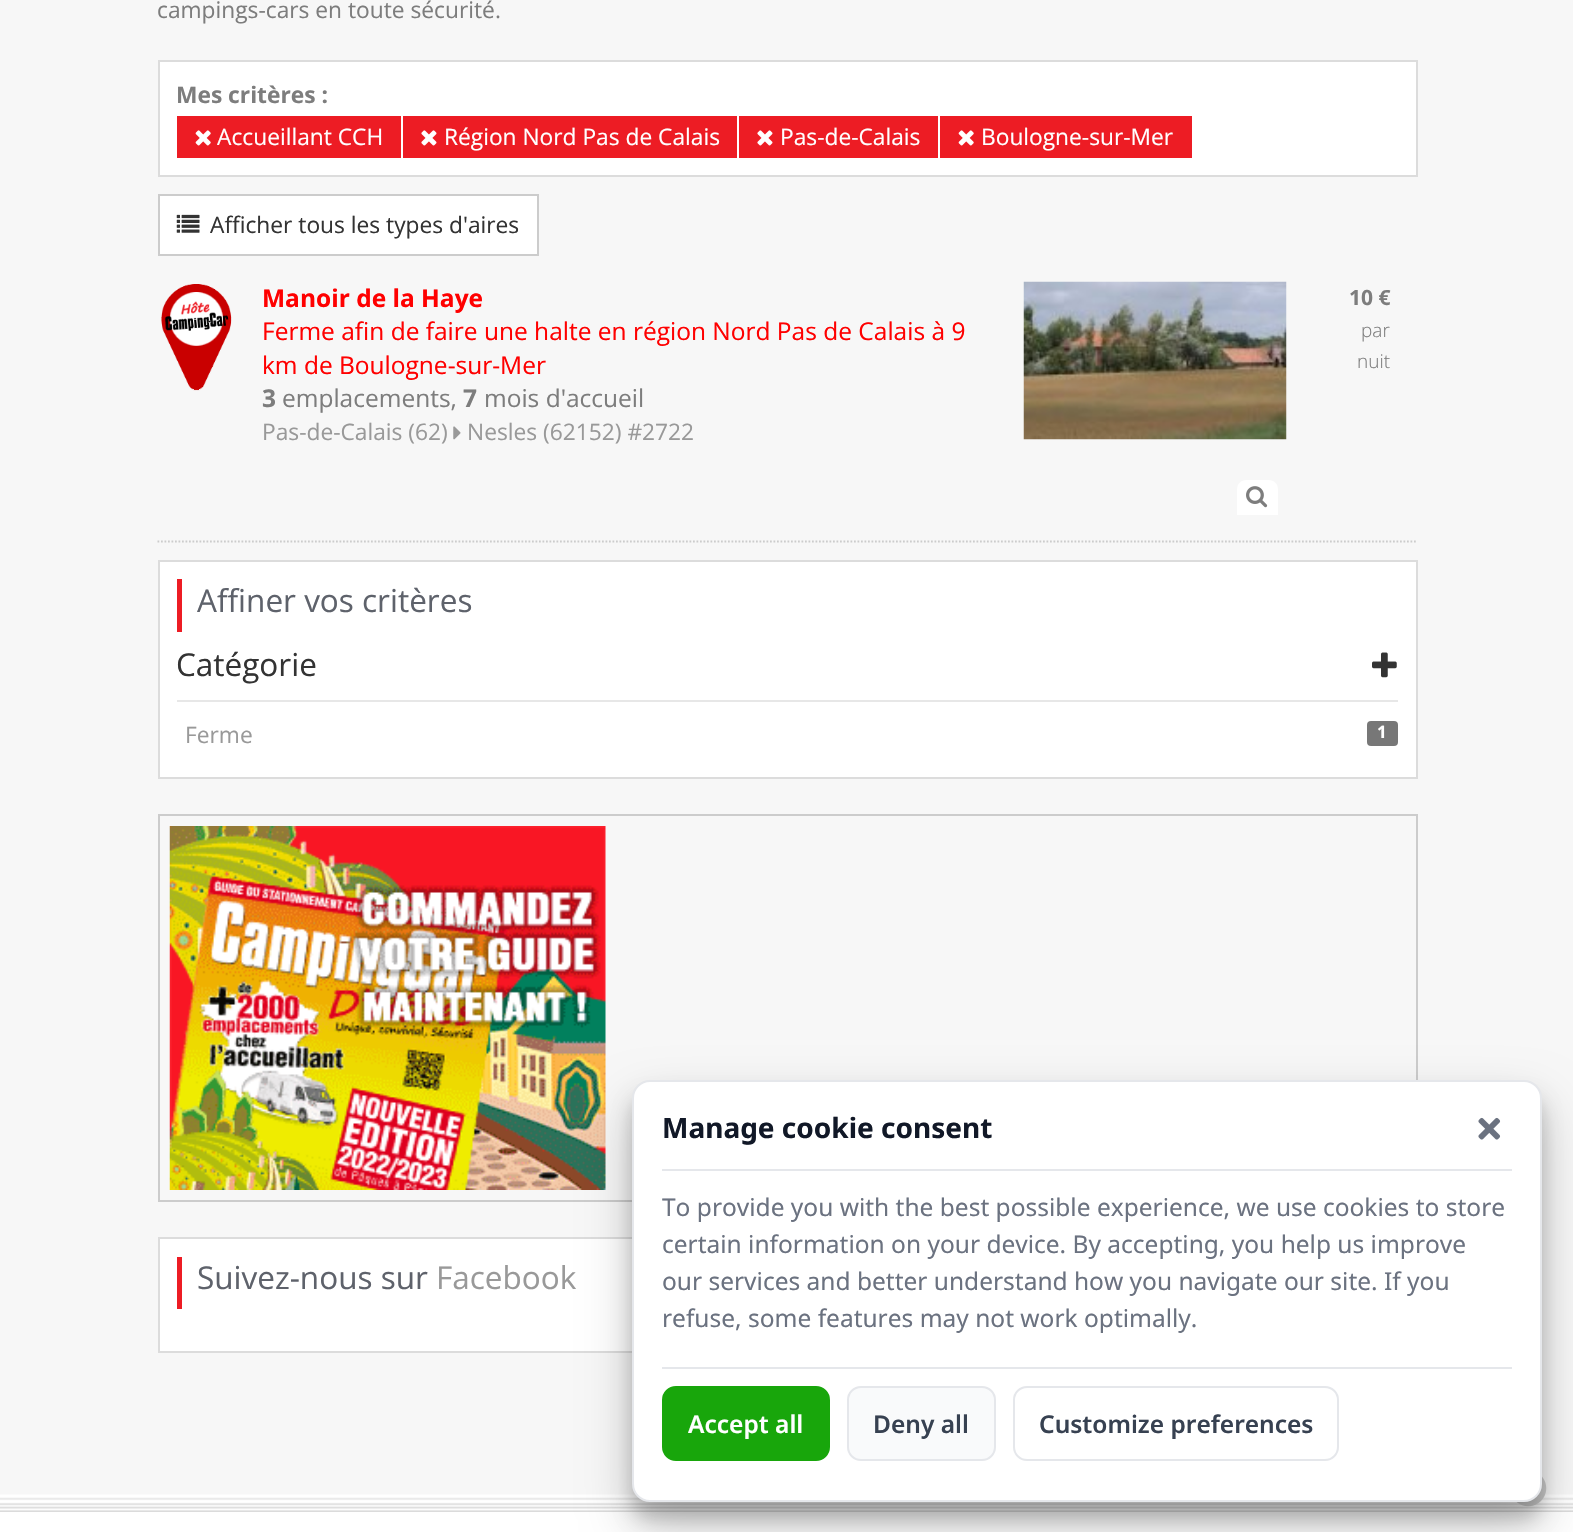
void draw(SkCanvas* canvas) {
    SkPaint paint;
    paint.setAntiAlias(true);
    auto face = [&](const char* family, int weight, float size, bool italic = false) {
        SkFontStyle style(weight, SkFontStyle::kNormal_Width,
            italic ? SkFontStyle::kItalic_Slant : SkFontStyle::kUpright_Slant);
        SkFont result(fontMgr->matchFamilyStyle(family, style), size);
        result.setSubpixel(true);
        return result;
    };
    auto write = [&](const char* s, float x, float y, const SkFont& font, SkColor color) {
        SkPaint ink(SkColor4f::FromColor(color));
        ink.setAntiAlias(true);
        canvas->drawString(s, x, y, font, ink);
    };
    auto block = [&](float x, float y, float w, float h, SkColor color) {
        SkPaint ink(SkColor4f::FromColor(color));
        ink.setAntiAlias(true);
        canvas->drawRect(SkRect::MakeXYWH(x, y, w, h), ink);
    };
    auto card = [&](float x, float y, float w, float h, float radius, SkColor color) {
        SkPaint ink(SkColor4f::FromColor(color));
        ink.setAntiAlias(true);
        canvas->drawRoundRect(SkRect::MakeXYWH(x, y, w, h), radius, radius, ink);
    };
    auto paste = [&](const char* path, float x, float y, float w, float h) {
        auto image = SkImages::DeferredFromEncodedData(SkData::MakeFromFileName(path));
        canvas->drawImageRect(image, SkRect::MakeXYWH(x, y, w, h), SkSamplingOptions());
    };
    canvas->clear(SkColorSetRGB(247, 247, 247));
    auto kFont1 = face("Open Sans", 400, 22.75f);
    write("campings-cars en toute sécurité.", 157, 18, kFont1, SkColorSetRGB(125, 125, 125));
    paint.setColor(SK_ColorWHITE);
    canvas->drawRect(SkRect::MakeXYWH(159, 61, 1258, 115), paint);
    paint.setStyle(SkPaint::kStroke_Style);
    paint.setStrokeWidth(2);
    paint.setColor(SkColorSetRGB(220, 220, 220));
    canvas->drawRect(SkRect::MakeXYWH(159, 61, 1258, 115), paint);
    auto kFont2 = face("Open Sans", 700, 22.75f);
    write("Mes critères :", 176, 103, kFont2, SkColorSetRGB(125, 125, 125));
    block(177, 116, 224, 42, SkColorSetRGB(237, 28, 36));
    paste("pic1.png", 195, 130, 16, 16);
    write("Accueillant CCH", 217, 145, kFont1, SK_ColorWHITE);
    block(403, 116, 334, 42, SkColorSetRGB(237, 28, 36));
    paste("pic2.png", 421, 130, 16, 16);
    write("Région Nord Pas de Calais", 444, 145, kFont1, SK_ColorWHITE);
    block(739, 116, 199, 42, SkColorSetRGB(237, 28, 36));
    paste("pic2.png", 757, 130, 16, 16);
    write("Pas-de-Calais", 780, 145, kFont1, SK_ColorWHITE);
    block(940, 116, 252, 42, SkColorSetRGB(237, 28, 36));
    paste("pic1.png", 958, 130, 16, 16);
    write("Boulogne-sur-Mer", 981, 145, kFont1, SK_ColorWHITE);
    paint.setStyle(SkPaint::kFill_Style);
    paint.setColor(SK_ColorWHITE);
    canvas->drawRect(SkRect::MakeXYWH(159, 195, 379, 60), paint);
    paint.setStyle(SkPaint::kStroke_Style);
    paint.setColor(SkColorSetRGB(204, 204, 204));
    canvas->drawRect(SkRect::MakeXYWH(159, 195, 379, 60), paint);
    paste("pic3.png", 176, 214, 24, 19);
    write("Afficher tous les types d'aires", 210, 233, kFont1, SkColorSetRGB(51, 51, 51));
    paint.setStrokeWidth(1.8f);
    paint.setPathEffect(SkDashPathEffect::Make({{1.75f, 1.75f}}, 0));
    canvas->drawPath(SkPathBuilder().moveTo(157.5f, 541.5f).lineTo(1417.5f, 541.5f).detach(), paint);
    paint.setPathEffect(nullptr);
    paste("pic4.png", 161, 284, 71, 107);
    auto kFont3 = face("Open Sans", 700, 24.5f);
    write("Manoir de la Haye", 262, 307, kFont3, SkColorSetRGB(255, 0, 0));
    auto kFont4 = face("Open Sans", 400, 24.5f);
    write("Ferme afin de faire une halte en région Nord Pas de Calais à 9", 262, 340, kFont4, SkColorSetRGB(255, 0, 0));
    write("km de Boulogne-sur-Mer", 262, 374, kFont4, SkColorSetRGB(255, 0, 0));
    write("3", 262, 407, kFont3, SkColorSetRGB(125, 125, 125));
    write("emplacements,", 282, 407, kFont4, SkColorSetRGB(125, 125, 125));
    write("7", 463, 407, kFont3, SkColorSetRGB(125, 125, 125));
    write("mois d'accueil", 484, 407, kFont4, SkColorSetRGB(125, 125, 125));
    write("Pas-de-Calais (62)", 262, 440, kFont1, SkColorSetRGB(153, 153, 153));
    paste("pic5.png", 453, 426, 8, 14);
    write("Nesles (62152) #2722", 467, 440, kFont1, SkColorSetRGB(153, 153, 153));
    paste("pic6.png", 1023, 281, 264, 159);
    paint.setStyle(SkPaint::kFill_Style);
    paint.setColor(SK_ColorWHITE);
    canvas->drawPath(SkPathBuilder().moveTo(1246, 480).lineTo(1269, 480).cubicTo(1274, 480, 1278, 484, 1278, 489).lineTo(1278, 515).lineTo(1237, 515).lineTo(1237, 489).cubicTo(1237, 484, 1241, 480, 1246, 480).close().detach(), paint);
    paste("pic7.png", 1246, 486, 22, 22);
    auto kFont5 = face("Open Sans", 700, 21);
    write("10 €", 1349, 305, kFont5, SkColorSetRGB(125, 125, 125));
    auto kFont6 = face("Open Sans", 300, 19);
    write("par", 1361, 337, kFont6, SkColorSetRGB(125, 125, 125));
    write("nuit", 1357, 368, kFont6, SkColorSetRGB(125, 125, 125));
    canvas->drawRect(SkRect::MakeXYWH(159, 561, 1258, 217), paint);
    paint.setStyle(SkPaint::kStroke_Style);
    paint.setStrokeWidth(2);
    paint.setColor(SkColorSetRGB(220, 220, 220));
    canvas->drawRect(SkRect::MakeXYWH(159, 561, 1258, 217), paint);
    block(177, 579, 5, 53, SkColorSetRGB(237, 28, 36));
    auto kFont7 = face("Open Sans", 400, 31.5f);
    write("Affiner vos critères", 197, 612, kFont7, SkColorSetRGB(94, 98, 107));
    block(177, 700, 1221, 2, SkColorSetRGB(231, 231, 231));
    write("Catégorie", 176, 676, kFont7, SkColorSetRGB(51, 51, 51));
    paste("pic8.png", 1372, 652, 25, 26);
    write("Ferme", 185, 743, kFont1, SkColorSetRGB(153, 153, 153));
    card(1367, 721, 31, 25, 4, SkColorSetRGB(119, 119, 119));
    auto kFont8 = face("Open Sans", 700, 17);
    write("1", 1377, 738, kFont8, SK_ColorWHITE);
    paint.setColor(SkColorSetRGB(204, 204, 204));
    canvas->drawRect(SkRect::MakeXYWH(159, 815, 1258, 386), paint);
    paste("pic9.png", 169, 826, 437, 364);
    block(160, 1239, 472, 112, SK_ColorWHITE);
    paint.setColor(SkColorSetRGB(220, 220, 220));
    canvas->drawRect(SkRect::MakeXYWH(159, 1238, 1258, 114), paint);
    block(177, 1257, 5, 52, SkColorSetRGB(237, 28, 36));
    write("Suivez-nous sur", 197, 1289, kFont7, SkColorSetRGB(94, 98, 107));
    write("Facebook", 436, 1289, kFont7, SkColorSetRGB(153, 153, 153));
    block(0, 1512, 1573, 20, SK_ColorWHITE);
    paste("pic10.png", 0, 1494, 1573, 18);
    paste("pic12.png", 1516, 1476, 31, 31);
    paint.setStyle(SkPaint::kFill_Style);
    paint.setColor(SkColorSetARGB(46, 0, 0, 0));
    paint.setMaskFilter(SkMaskFilter::MakeBlur(kNormal_SkBlurStyle, 9));
    canvas->drawRoundRect(SkRect::MakeXYWH(632, 1097, 910, 422), 18, 18, paint);
    paint.setMaskFilter(nullptr);
    paint.setColor(SkColorSetARGB(56, 0, 0, 0));
    paint.setMaskFilter(SkMaskFilter::MakeBlur(kNormal_SkBlurStyle, 24.5f));
    canvas->drawRoundRect(SkRect::MakeXYWH(632, 1104, 910, 422), 18, 18, paint);
    paint.setMaskFilter(nullptr);
    paint.setColor(SK_ColorWHITE);
    canvas->drawRoundRect(SkRect::MakeXYWH(633, 1081, 908, 420), 17, 17, paint);
    paint.setStyle(SkPaint::kStroke_Style);
    paint.setColor(SkColorSetRGB(229, 231, 235));
    canvas->drawRoundRect(SkRect::MakeXYWH(633, 1081, 908, 420), 17, 17, paint);
    auto kFont9 = face("Noto Sans", 700, 28);
    write("Manage cookie consent", 662, 1138, kFont9, SkColorSetRGB(17, 24, 39));
    paste("pic11.png", 1478, 1117, 23, 23);
    block(662, 1169, 850, 2, SkColorSetRGB(229, 231, 235));
    canvas->save();
    canvas->clipRect(SkRect::MakeXYWH(662, 1188, 850, 161));
    auto kFont10 = face("Noto Sans", 400, 24.5f);
    write("To provide you with the best possible experience, we use cookies to store", 662, 1216, kFont10, SkColorSetRGB(107, 114, 128));
    canvas->restore();
    write("certain information on your device. By accepting, you help us improve", 662, 1253, kFont10, SkColorSetRGB(107, 114, 128));
    write("our services and better understand how you navigate our site. If you", 662, 1290, kFont10, SkColorSetRGB(107, 114, 128));
    write("refuse, some features may not work optimally.", 662, 1327, kFont10, SkColorSetRGB(107, 114, 128));
    block(662, 1367, 850, 2, SkColorSetRGB(229, 231, 235));
    paint.setStyle(SkPaint::kFill_Style);
    paint.setColor(SkColorSetRGB(24, 166, 11));
    canvas->drawRoundRect(SkRect::MakeXYWH(663, 1387, 166, 73), 13, 13, paint);
    paint.setStyle(SkPaint::kStroke_Style);
    canvas->drawRoundRect(SkRect::MakeXYWH(663, 1387, 166, 73), 13, 13, paint);
    auto kFont11 = face("Noto Sans", 600, 24.5f);
    write("Accept all", 688, 1433, kFont11, SK_ColorWHITE);
    paint.setStyle(SkPaint::kFill_Style);
    paint.setColor(SkColorSetRGB(249, 250, 251));
    canvas->drawRoundRect(SkRect::MakeXYWH(848, 1387, 147, 73), 13, 13, paint);
    paint.setStyle(SkPaint::kStroke_Style);
    paint.setColor(SkColorSetRGB(229, 231, 235));
    canvas->drawRoundRect(SkRect::MakeXYWH(848, 1387, 147, 73), 13, 13, paint);
    write("Deny all", 873, 1433, kFont11, SkColorSetRGB(55, 65, 81));
    canvas->drawRoundRect(SkRect::MakeXYWH(1014, 1387, 324, 73), 13, 13, paint);
    write("Customize preferences", 1039, 1433, kFont11, SkColorSetRGB(55, 65, 81));
}
